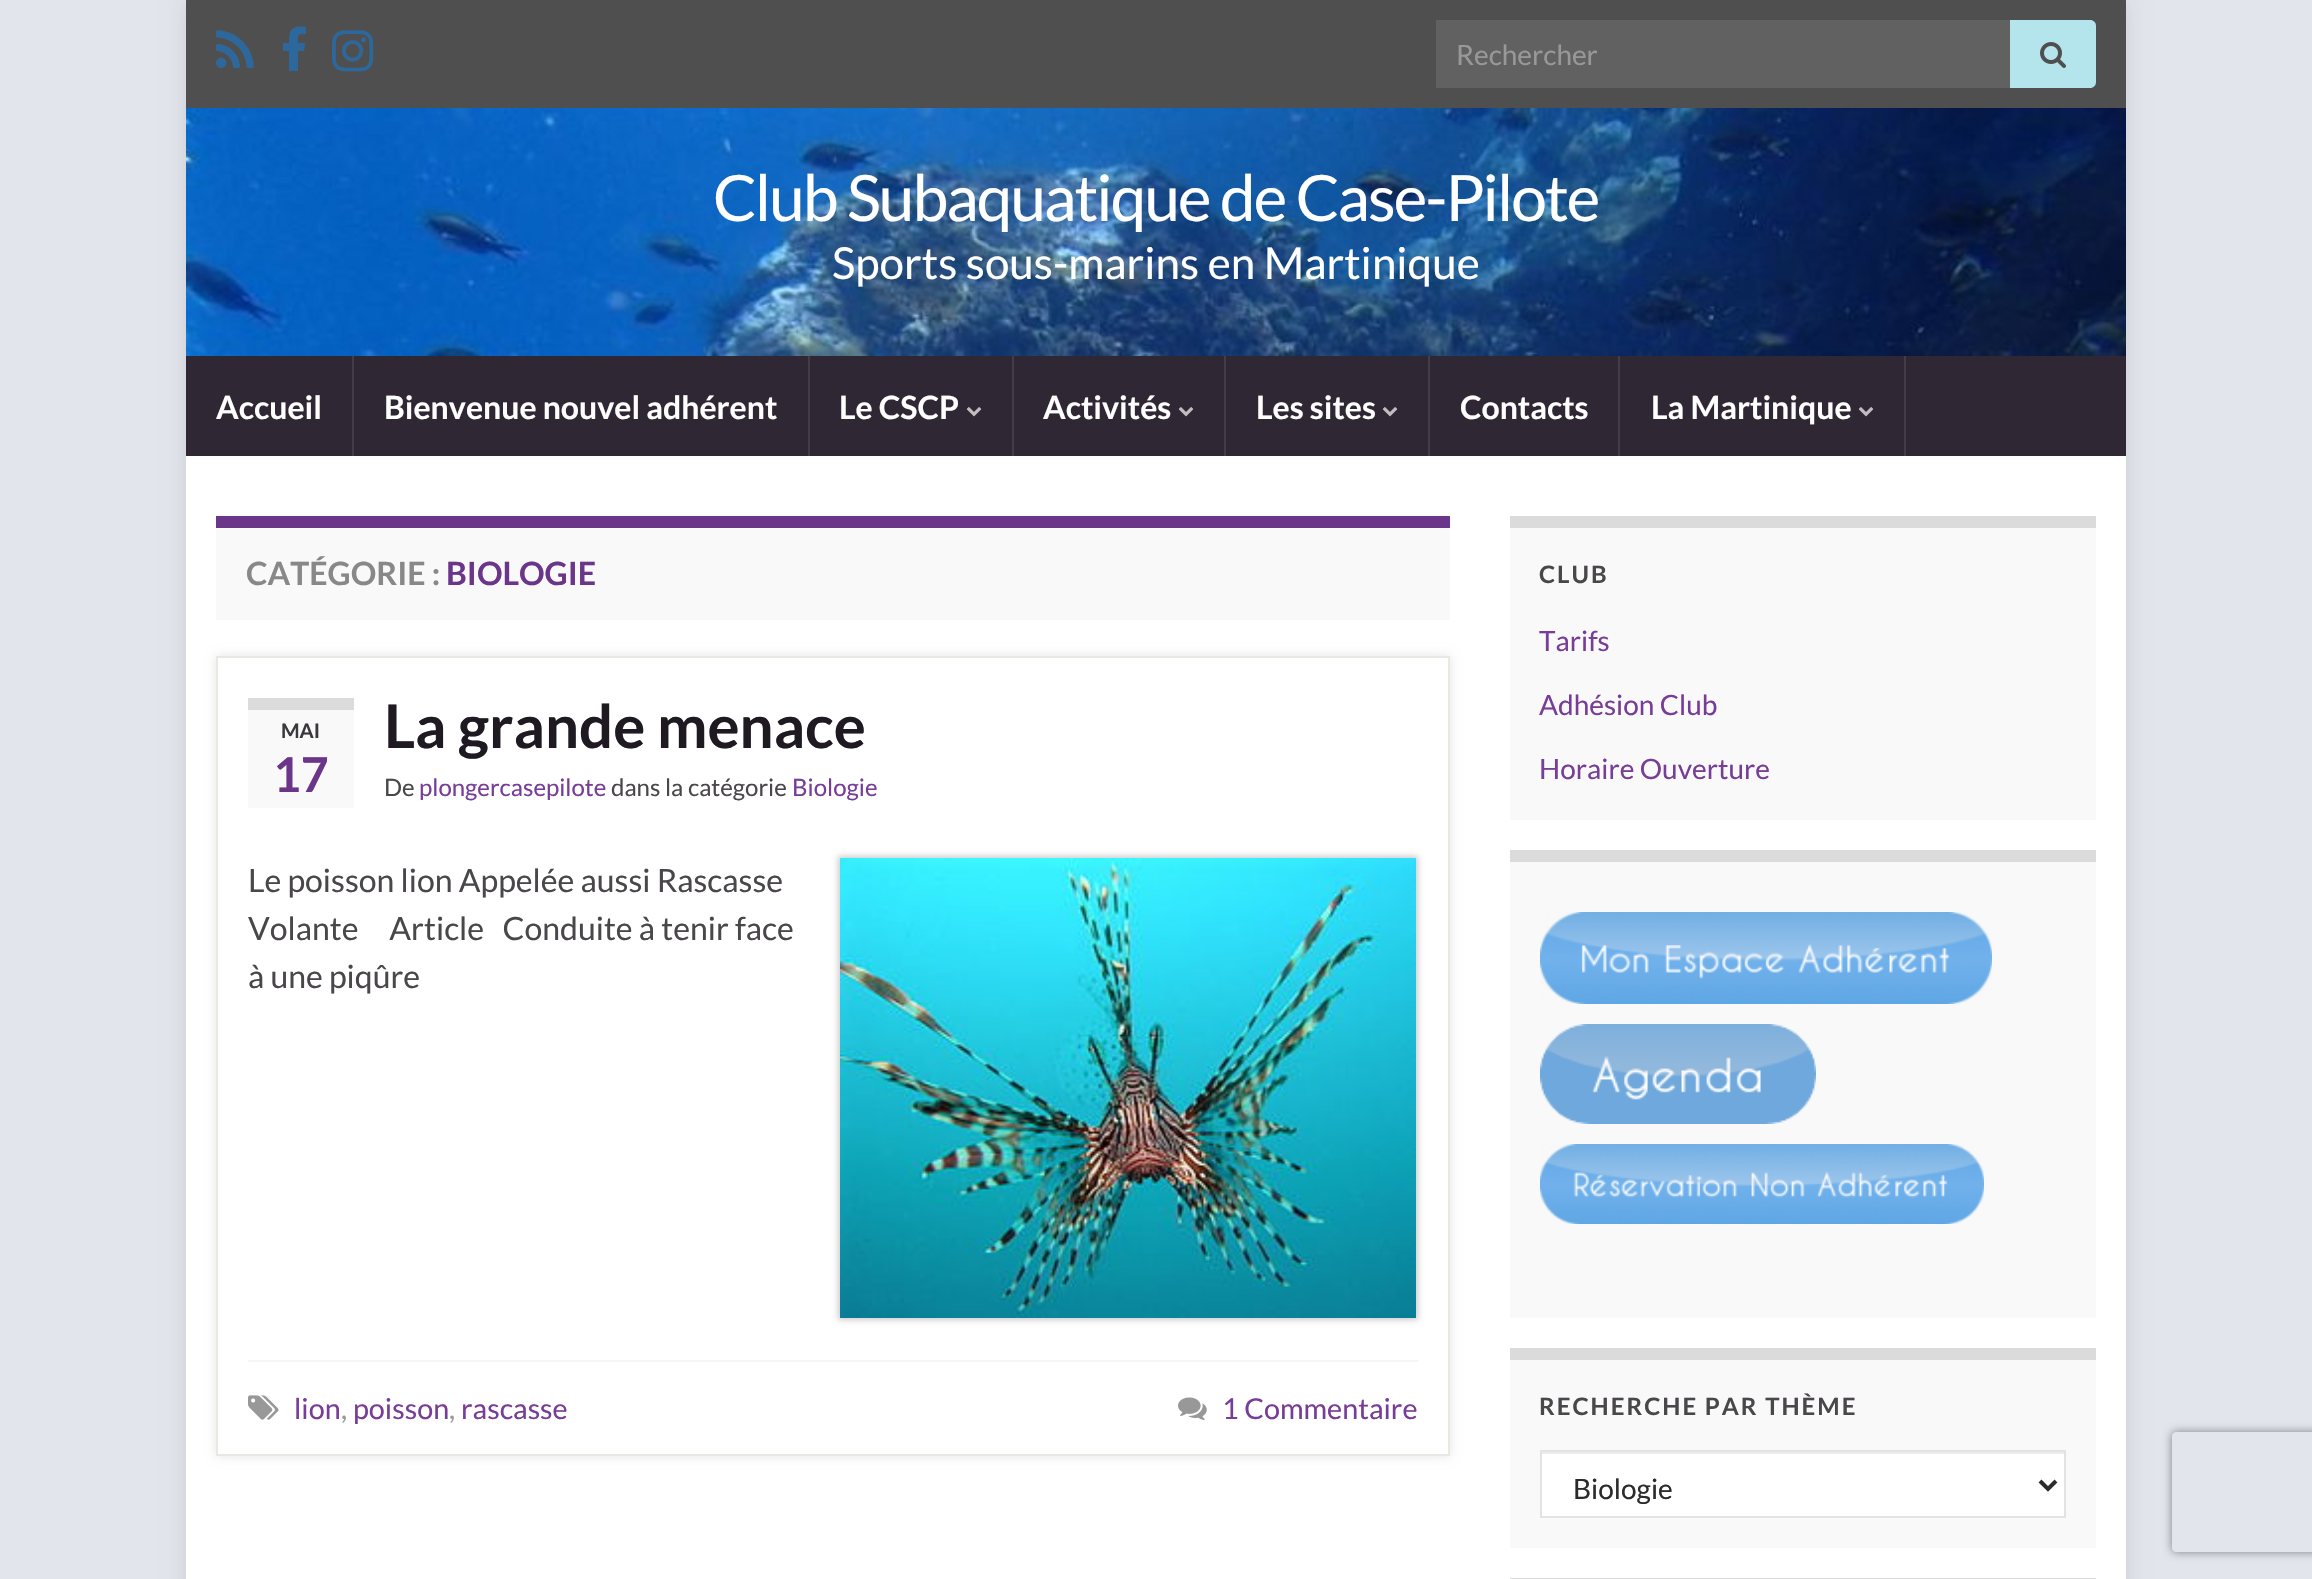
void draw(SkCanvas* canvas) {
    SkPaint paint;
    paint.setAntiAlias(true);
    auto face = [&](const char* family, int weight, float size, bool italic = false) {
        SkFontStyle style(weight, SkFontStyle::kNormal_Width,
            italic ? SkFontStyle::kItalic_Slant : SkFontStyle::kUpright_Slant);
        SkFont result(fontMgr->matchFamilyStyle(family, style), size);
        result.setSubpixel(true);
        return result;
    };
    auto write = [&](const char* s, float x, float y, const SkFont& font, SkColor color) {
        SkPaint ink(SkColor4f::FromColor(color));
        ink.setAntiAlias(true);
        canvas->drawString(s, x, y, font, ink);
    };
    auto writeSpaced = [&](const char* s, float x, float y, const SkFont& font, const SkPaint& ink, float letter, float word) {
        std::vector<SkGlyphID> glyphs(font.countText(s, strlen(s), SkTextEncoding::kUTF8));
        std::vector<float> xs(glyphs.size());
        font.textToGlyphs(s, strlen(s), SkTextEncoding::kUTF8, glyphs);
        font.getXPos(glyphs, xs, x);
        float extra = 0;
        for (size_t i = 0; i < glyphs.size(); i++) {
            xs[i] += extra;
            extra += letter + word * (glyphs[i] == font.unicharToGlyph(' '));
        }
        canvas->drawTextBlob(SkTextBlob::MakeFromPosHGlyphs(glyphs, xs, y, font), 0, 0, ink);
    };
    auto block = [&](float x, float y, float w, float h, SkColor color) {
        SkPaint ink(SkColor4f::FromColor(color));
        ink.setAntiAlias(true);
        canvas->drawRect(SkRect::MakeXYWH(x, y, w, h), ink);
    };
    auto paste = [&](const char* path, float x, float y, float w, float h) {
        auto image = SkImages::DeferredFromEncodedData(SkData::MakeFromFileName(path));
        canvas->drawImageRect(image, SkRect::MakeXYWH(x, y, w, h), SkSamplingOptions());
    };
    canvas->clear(SkColorSetRGB(227, 229, 237));
    paint.setColor(SkColorSetARGB(26, 0, 0, 0));
    paint.setMaskFilter(SkMaskFilter::MakeBlur(kNormal_SkBlurStyle, 10));
    canvas->drawRect(SkRect::MakeXYWH(186, 0, 1940, 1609), paint);
    paint.setMaskFilter(nullptr);
    block(186, 0, 1940, 108, SkColorSetRGB(79, 79, 79));
    paste("pic1.png", 216, 30, 38, 38);
    paint.setColor(SkColorSetRGB(45, 104, 157));
    canvas->drawPath(SkPathBuilder().moveTo(306, 27).lineTo(306, 34).cubicTo(297, 34, 298, 35, 298, 43).lineTo(305, 43).lineTo(304, 51).lineTo(298, 51).lineTo(298, 71).lineTo(289, 71).lineTo(289, 51).lineTo(283, 51).lineTo(283, 43).lineTo(289, 43).cubicTo(289, 30, 291, 25, 306, 27).close().detach(), paint);
    paste("pic2.png", 332, 30, 42, 42);
    block(1436, 20, 574, 68, SkColorSetRGB(97, 97, 97));
    auto kFont1 = face("Lato", 400, 28);
    write("Rechercher", 1456, 65, kFont1, SkColorSetRGB(152, 152, 152));
    paint.setColor(SkColorSetRGB(180, 229, 237));
    canvas->drawPath(SkPathBuilder().moveTo(2010, 20).lineTo(2090, 20).cubicTo(2093.5f, 20, 2096, 22.5f, 2096, 26).lineTo(2096, 82).cubicTo(2096, 85.5f, 2093.5f, 88, 2090, 88).lineTo(2010, 88).close().detach(), paint);
    paste("pic3.png", 2040, 42, 26, 26);
    paste("pic4.png", 186, 108, 1940, 248);
    block(186, 356, 1940, 100, SkColorSetRGB(47, 39, 51));
    auto kFont2 = face("Lato", 400, 64);
    paint.setColor(SK_ColorWHITE);
    writeSpaced("Club Subaquatique de Case-Pilote", 713, 221, kFont2, paint, -2, 0);
    auto kFont3 = face("Lato", 400, 44);
    write("Sports sous-marins en Martinique", 832, 279, kFont3, SK_ColorWHITE);
    block(352, 356, 2, 100, SkColorSetRGB(68, 61, 71));
    auto kFont4 = face("Lato", 700, 32);
    write("Accueil", 216, 419, kFont4, SK_ColorWHITE);
    block(808, 356, 2, 100, SkColorSetRGB(68, 61, 71));
    write("Bienvenue nouvel adhérent", 384, 419, kFont4, SK_ColorWHITE);
    block(1012, 356, 2, 100, SkColorSetRGB(68, 61, 71));
    write("Le CSCP", 839, 419, kFont4, SK_ColorWHITE);
    paste("pic5.png", 966, 407, 16, 10);
    block(1224, 356, 2, 100, SkColorSetRGB(68, 61, 71));
    write("Activités", 1043, 419, kFont4, SK_ColorWHITE);
    paste("pic5.png", 1178, 407, 16, 10);
    block(1428, 356, 2, 100, SkColorSetRGB(68, 61, 71));
    write("Les sites", 1256, 419, kFont4, SK_ColorWHITE);
    paste("pic5.png", 1382, 407, 16, 10);
    block(1618, 356, 2, 100, SkColorSetRGB(68, 61, 71));
    write("Contacts", 1460, 419, kFont4, SK_ColorWHITE);
    block(1904, 356, 2, 100, SkColorSetRGB(68, 61, 71));
    write("La Martinique", 1651, 419, kFont4, SK_ColorWHITE);
    paste("pic5.png", 1858, 407, 16, 10);
    block(186, 456, 1940, 1123, SK_ColorWHITE);
    block(216, 528, 1234, 92, SkColorSetRGB(249, 249, 249));
    block(216, 516, 1234, 12, SkColorSetRGB(107, 53, 137));
    write("CATÉGORIE :", 246, 585, kFont4, SkColorSetRGB(136, 136, 136));
    write("BIOLOGIE", 446, 585, kFont4, SkColorSetRGB(107, 53, 137));
    canvas->save();
    canvas->clipPath(SkPathBuilder(SkPathFillType::kEvenOdd).moveTo(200, 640).lineTo(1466, 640).lineTo(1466, 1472).lineTo(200, 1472).close().moveTo(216, 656).lineTo(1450, 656).lineTo(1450, 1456).lineTo(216, 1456).close().detach(), true);
    paint.setColor(SkColorSetARGB(26, 0, 0, 0));
    paint.setMaskFilter(SkMaskFilter::MakeBlur(kNormal_SkBlurStyle, 5));
    canvas->drawRect(SkRect::MakeXYWH(216, 656, 1234, 800), paint);
    paint.setMaskFilter(nullptr);
    canvas->restore();
    paint.setStyle(SkPaint::kStroke_Style);
    paint.setStrokeWidth(2);
    paint.setColor(SkColorSetRGB(233, 232, 227));
    canvas->drawRect(SkRect::MakeXYWH(217, 657, 1232, 798), paint);
    block(248, 710, 106, 98, SkColorSetRGB(249, 249, 249));
    block(248, 698, 106, 12, SkColorSetRGB(219, 219, 219));
    auto kFont5 = face("Lato", 700, 20);
    write("MAI", 281, 738, kFont5, SkColorSetRGB(59, 56, 61));
    auto kFont6 = face("Lato", 700, 48);
    write("17", 273, 792, kFont6, SkColorSetRGB(107, 53, 137));
    auto kFont7 = face("Lato", 700, 60);
    write("La grande menace", 384, 748, kFont7, SkColorSetRGB(31, 26, 34));
    auto kFont8 = face("Lato", 400, 24);
    write("De", 384, 796, kFont8, SkColorSetRGB(74, 71, 75));
    write("plongercasepilote", 419, 796, kFont8, SkColorSetRGB(120, 61, 152));
    write("dans la catégorie", 611, 796, kFont8, SkColorSetRGB(74, 71, 75));
    write("Biologie", 792, 796, kFont8, SkColorSetRGB(120, 61, 152));
    auto kFont9 = face("Lato", 400, 32);
    write("Le poisson lion Appelée aussi Rascasse", 248, 892, kFont9, SkColorSetRGB(74, 71, 75));
    write("Volante     Article   Conduite à tenir face", 248, 940, kFont9, SkColorSetRGB(74, 71, 75));
    write("à une piqûre", 248, 988, kFont9, SkColorSetRGB(74, 71, 75));
    paint.setStyle(SkPaint::kFill_Style);
    paint.setColor(SkColorSetARGB(51, 0, 0, 0));
    paint.setMaskFilter(SkMaskFilter::MakeBlur(kNormal_SkBlurStyle, 3));
    canvas->drawRect(SkRect::MakeXYWH(838, 856, 580, 464), paint);
    paint.setMaskFilter(nullptr);
    paste("pic6.png", 840, 858, 576, 460);
    block(248, 1360, 1170, 2, SkColorSetRGB(245, 245, 245));
    paste("pic7.png", 248, 1395, 31, 25);
    auto kFont10 = face("Lato", 400, 28.75f);
    write("lion", 294, 1419, kFont10, SkColorSetRGB(120, 61, 152));
    write(",", 341, 1419, kFont10, SkColorSetRGB(152, 152, 152));
    write("poisson", 353, 1419, kFont10, SkColorSetRGB(120, 61, 152));
    write(",", 449, 1419, kFont10, SkColorSetRGB(152, 152, 152));
    write("rascasse", 461, 1419, kFont10, SkColorSetRGB(120, 61, 152));
    paste("pic8.png", 1178, 1397, 29, 23);
    write("1 Commentaire", 1222, 1419, kFont10, SkColorSetRGB(120, 61, 152));
    block(1510, 528, 586, 292, SkColorSetRGB(249, 249, 249));
    block(1510, 516, 586, 12, SkColorSetRGB(219, 219, 219));
    auto kFont11 = face("Lato", 700, 24);
    paint.setColor(SkColorSetRGB(74, 71, 75));
    writeSpaced("CLUB", 1539, 583, kFont11, paint, 2, 0);
    write("Tarifs", 1539, 651, kFont1, SkColorSetRGB(120, 61, 152));
    write("Adhésion Club", 1539, 715, kFont1, SkColorSetRGB(120, 61, 152));
    write("Horaire Ouverture", 1539, 779, kFont1, SkColorSetRGB(120, 61, 152));
    block(1510, 862, 586, 456, SkColorSetRGB(249, 249, 249));
    block(1510, 850, 586, 12, SkColorSetRGB(219, 219, 219));
    paste("pic9.png", 1540, 912, 452, 92);
    paste("pic10.png", 1540, 1024, 276, 100);
    paste("pic11.png", 1540, 1144, 444, 80);
    block(1510, 1360, 586, 188, SkColorSetRGB(249, 249, 249));
    block(1510, 1348, 586, 12, SkColorSetRGB(219, 219, 219));
    writeSpaced("RECHERCHE PAR THÈME", 1539, 1415, kFont11, paint, 2, 0);
    block(1542, 1454, 522, 62, SK_ColorWHITE);
    block(1542, 1452, 522, 2, SkColorSetRGB(236, 236, 236));
    paint.setStyle(SkPaint::kStroke_Style);
    paint.setColor(SkColorSetRGB(227, 227, 227));
    canvas->drawRect(SkRect::MakeXYWH(1541, 1451, 524, 66), paint);
    paint.setStrokeWidth(4);
    paint.setColor(SkColorSetRGB(44, 43, 43));
    canvas->drawPath(SkPathBuilder().moveTo(2040, 1481).lineTo(2048, 1489).lineTo(2056, 1481).detach(), paint);
    write("Biologie", 1573, 1499, kFont1, SkColorSetRGB(44, 43, 43));
    block(1510, 1578, 586, 1, SkColorSetRGB(219, 219, 219));
    canvas->save();
    canvas->clipPath(SkPathBuilder(SkPathFillType::kEvenOdd).moveTo(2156, 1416).lineTo(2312, 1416).lineTo(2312, 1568).lineTo(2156, 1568).close().moveTo(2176, 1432).lineTo(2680, 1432).cubicTo(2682, 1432, 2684, 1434, 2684, 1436).lineTo(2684, 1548).cubicTo(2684, 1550, 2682, 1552, 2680, 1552).lineTo(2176, 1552).cubicTo(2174, 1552, 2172, 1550, 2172, 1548).lineTo(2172, 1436).cubicTo(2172, 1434, 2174, 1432, 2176, 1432).close().detach(), true);
    paint.setStyle(SkPaint::kFill_Style);
    paint.setColor(SkColorSetRGB(128, 128, 128));
    paint.setMaskFilter(SkMaskFilter::MakeBlur(kNormal_SkBlurStyle, 5));
    canvas->drawRoundRect(SkRect::MakeXYWH(2172, 1432, 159, 120), 4, 4, paint);
    paint.setMaskFilter(nullptr);
    canvas->restore();
}
